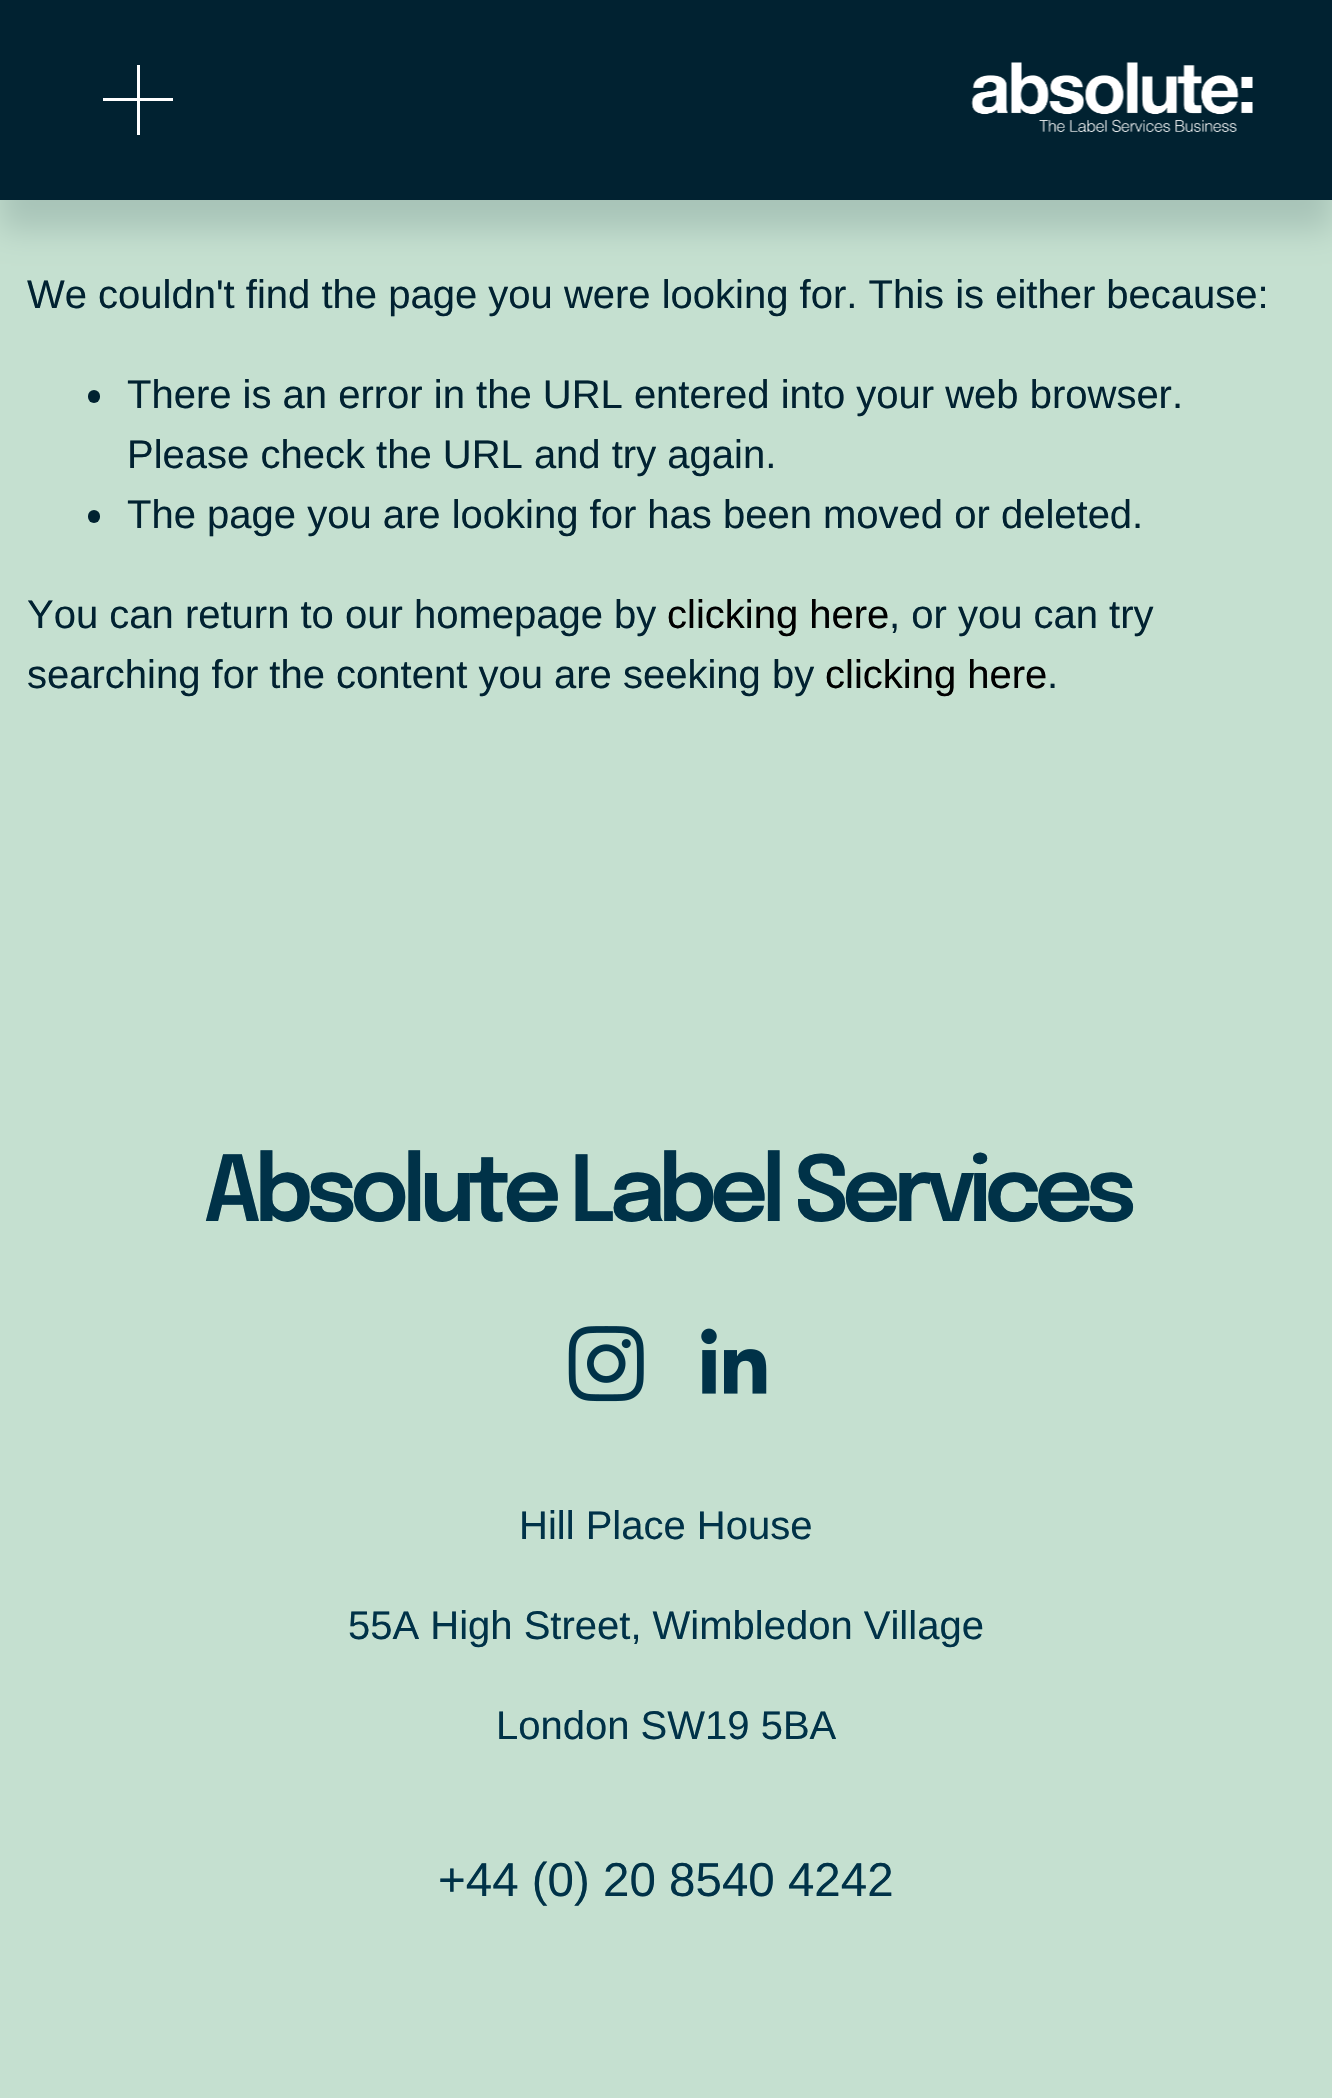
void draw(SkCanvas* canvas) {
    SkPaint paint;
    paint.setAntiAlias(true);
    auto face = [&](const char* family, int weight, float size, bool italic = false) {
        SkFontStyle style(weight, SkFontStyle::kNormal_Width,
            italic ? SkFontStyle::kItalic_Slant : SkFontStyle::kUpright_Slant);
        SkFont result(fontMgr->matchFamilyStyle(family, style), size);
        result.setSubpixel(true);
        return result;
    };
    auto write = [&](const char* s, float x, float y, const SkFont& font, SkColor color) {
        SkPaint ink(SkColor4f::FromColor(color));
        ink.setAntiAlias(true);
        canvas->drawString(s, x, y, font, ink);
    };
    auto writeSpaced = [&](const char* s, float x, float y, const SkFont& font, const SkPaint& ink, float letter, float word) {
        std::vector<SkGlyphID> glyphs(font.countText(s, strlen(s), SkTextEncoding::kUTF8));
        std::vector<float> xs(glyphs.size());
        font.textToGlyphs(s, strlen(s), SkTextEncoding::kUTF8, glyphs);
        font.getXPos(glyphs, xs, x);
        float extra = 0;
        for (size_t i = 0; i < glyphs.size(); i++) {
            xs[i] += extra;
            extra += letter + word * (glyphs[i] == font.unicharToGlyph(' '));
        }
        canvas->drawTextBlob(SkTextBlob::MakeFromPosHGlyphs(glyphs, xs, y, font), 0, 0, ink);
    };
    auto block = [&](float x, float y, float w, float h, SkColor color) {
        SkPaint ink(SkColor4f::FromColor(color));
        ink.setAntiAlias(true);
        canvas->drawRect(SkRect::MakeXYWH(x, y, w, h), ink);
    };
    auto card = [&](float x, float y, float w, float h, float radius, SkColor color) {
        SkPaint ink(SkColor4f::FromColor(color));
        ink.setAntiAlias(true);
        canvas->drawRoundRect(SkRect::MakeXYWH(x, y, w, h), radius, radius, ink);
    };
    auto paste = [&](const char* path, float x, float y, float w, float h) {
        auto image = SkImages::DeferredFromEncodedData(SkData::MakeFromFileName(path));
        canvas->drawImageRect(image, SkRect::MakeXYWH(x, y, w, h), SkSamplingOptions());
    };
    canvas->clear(SkColorSetRGB(197, 224, 208));
    paint.setColor(SkColorSetRGB(168, 196, 184));
    paint.setMaskFilter(SkMaskFilter::MakeBlur(kNormal_SkBlurStyle, 15));
    canvas->drawRect(SkRect::MakeXYWH(0, 30, 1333, 200), paint);
    paint.setMaskFilter(nullptr);
    block(0, 0, 1332, 200, SkColorSetRGB(1, 34, 49));
    block(103, 98, 70, 3, SK_ColorWHITE);
    block(137, 65, 3, 70, SK_ColorWHITE);
    paste("pic1.png", 971, 62, 282, 71);
    auto kFont1 = face("Liberation Sans", 400, 40);
    write("We couldn't find the page you were looking for. This is either because:", 27, 308, kFont1, SkColorSetRGB(1, 34, 49));
    card(88, 390, 12, 13, 6, SkColorSetRGB(1, 34, 49));
    write("There is an error in the URL entered into your web browser.", 127, 408, kFont1, SkColorSetRGB(1, 34, 49));
    write("Please check the URL and try again.", 127, 468, kFont1, SkColorSetRGB(1, 34, 49));
    card(88, 510, 12, 13, 6, SkColorSetRGB(1, 34, 49));
    write("The page you are looking for has been moved or deleted.", 127, 528, kFont1, SkColorSetRGB(1, 34, 49));
    write("You can return to our homepage by", 27, 628, kFont1, SkColorSetRGB(1, 34, 49));
    write("clicking here", 667, 628, kFont1, SK_ColorBLACK);
    write(", or you can try", 889, 628, kFont1, SkColorSetRGB(1, 34, 49));
    write("searching for the content you are seeking by", 27, 688, kFont1, SkColorSetRGB(1, 34, 49));
    write("clicking here", 825, 688, kFont1, SK_ColorBLACK);
    write(".", 1047, 688, kFont1, SkColorSetRGB(1, 34, 49));
    auto kFont2 = face("Epilogue", 600, 90.4f);
    paint.setColor(SkColorSetRGB(0, 50, 72));
    writeSpaced("Absolute Label Services", 203, 1221, kFont2, paint, -7.25f, 0);
    paste("pic2.png", 568, 1326, 76, 76);
    paste("pic3.png", 701, 1328, 66, 66);
    write("Hill Place House", 519, 1539, kFont1, SkColorSetRGB(0, 50, 72));
    write("55A High Street, Wimbledon Village", 348, 1639, kFont1, SkColorSetRGB(0, 50, 72));
    write("London SW19 5BA", 496, 1739, kFont1, SkColorSetRGB(0, 50, 72));
    auto kFont3 = face("Liberation Sans", 400, 47.5f);
    write("+44 (0) 20 8540 4242", 438, 1896, kFont3, SkColorSetRGB(0, 50, 72));
}
